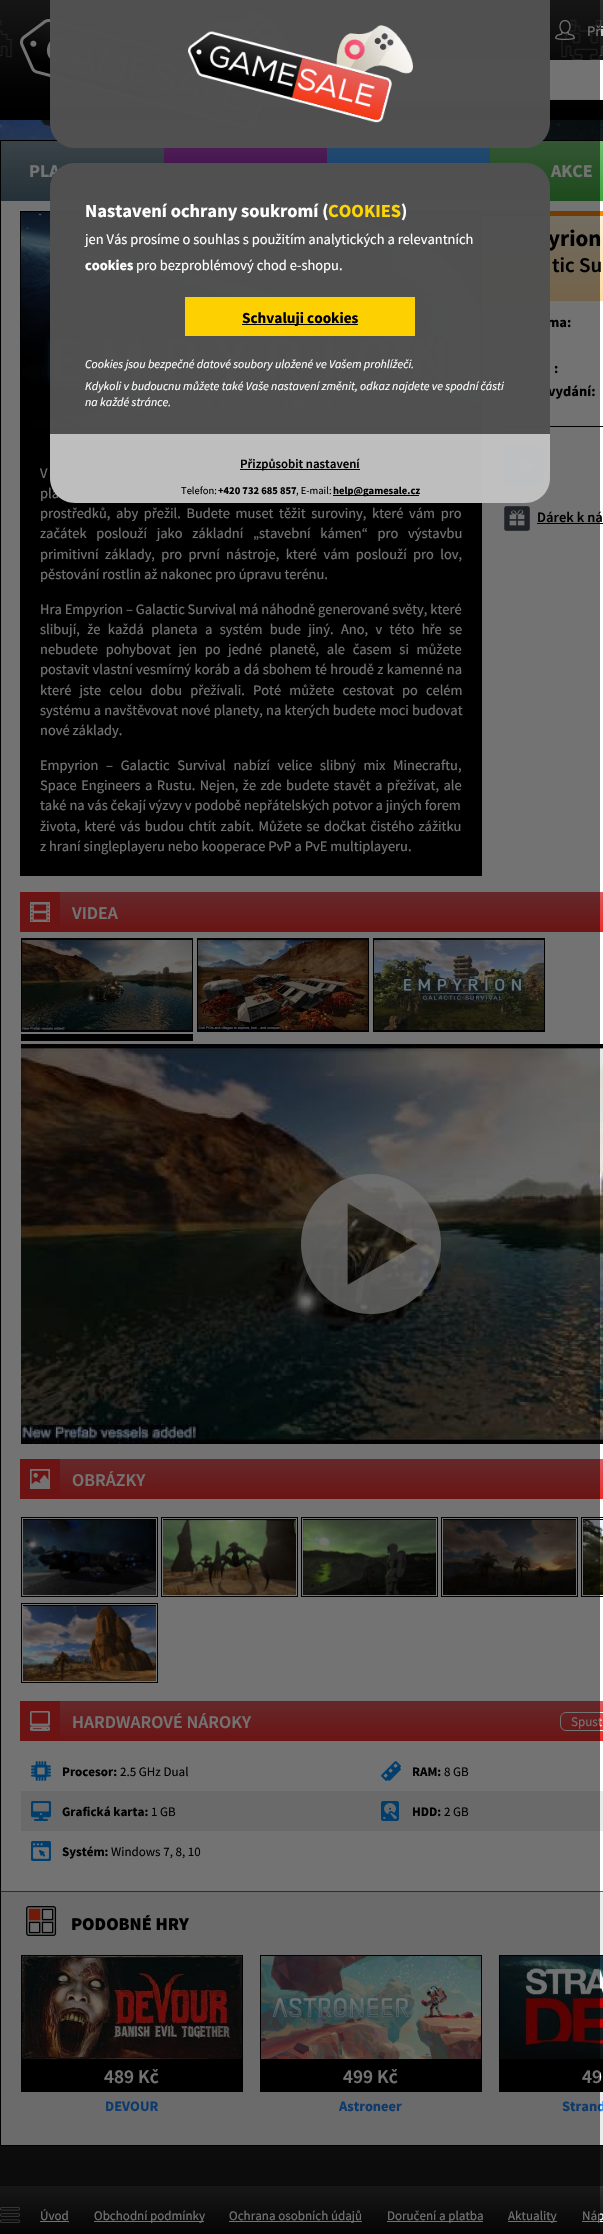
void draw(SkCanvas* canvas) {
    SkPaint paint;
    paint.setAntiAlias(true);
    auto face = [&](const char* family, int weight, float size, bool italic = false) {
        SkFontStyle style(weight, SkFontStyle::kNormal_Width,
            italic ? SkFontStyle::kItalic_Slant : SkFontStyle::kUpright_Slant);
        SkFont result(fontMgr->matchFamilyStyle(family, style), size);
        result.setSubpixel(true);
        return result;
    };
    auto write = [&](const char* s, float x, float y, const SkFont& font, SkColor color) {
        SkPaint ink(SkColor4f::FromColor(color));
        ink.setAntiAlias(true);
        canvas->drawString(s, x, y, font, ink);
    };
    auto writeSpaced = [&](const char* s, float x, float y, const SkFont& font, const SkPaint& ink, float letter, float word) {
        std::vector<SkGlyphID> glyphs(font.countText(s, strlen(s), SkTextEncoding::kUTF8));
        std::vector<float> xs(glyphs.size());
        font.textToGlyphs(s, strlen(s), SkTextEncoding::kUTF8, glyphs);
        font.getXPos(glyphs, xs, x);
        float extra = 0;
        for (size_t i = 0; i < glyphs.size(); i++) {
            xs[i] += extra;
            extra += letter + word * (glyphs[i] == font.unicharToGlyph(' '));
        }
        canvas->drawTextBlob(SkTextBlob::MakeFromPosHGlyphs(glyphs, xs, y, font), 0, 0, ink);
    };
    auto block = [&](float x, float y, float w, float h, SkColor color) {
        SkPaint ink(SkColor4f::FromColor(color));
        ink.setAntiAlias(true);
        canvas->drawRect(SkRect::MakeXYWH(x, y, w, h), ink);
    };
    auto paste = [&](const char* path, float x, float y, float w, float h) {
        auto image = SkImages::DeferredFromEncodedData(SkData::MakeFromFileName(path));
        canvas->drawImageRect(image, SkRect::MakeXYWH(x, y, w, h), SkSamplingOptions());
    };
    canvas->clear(SkColorSetRGB(25, 25, 25));
    paste("pic1.png", 0, 0, 603, 140);
    paste("pic2.png", 20, 11, 273, 119);
    paste("pic3.png", 555, 20, 20, 20);
    auto kFont1 = face("Source Sans Pro", 400, 14.4f);
    write("Při", 587, 36, kFont1, SK_ColorWHITE);
    paste("pic4.png", 340, 99, 263, 1);
    block(340, 60, 263, 39, SK_ColorWHITE);
    block(1, 201, 602, 1690, SK_ColorWHITE);
    paint.setStyle(SkPaint::kStroke_Style);
    paint.setStrokeWidth(1);
    paint.setColor(SK_ColorBLACK);
    canvas->drawRect(SkRect::MakeXYWH(0.5f, 140.5f, 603, 2005), paint);
    paint.setStyle(SkPaint::kFill_Style);
    {
        const SkColor colors[] = {SkColorSetRGB(126, 147, 158), SkColorSetRGB(79, 106, 121)};
        const float stops[] = {0, 1};
        const SkPoint ends[] = {{83, 141}, {83, 201}};
        paint.setShader(SkGradientShader::MakeLinear(ends, colors, stops, 2, SkTileMode::kClamp));
        paint.setAlpha(255);
    }
    canvas->drawRect(SkRect::MakeXYWH(1, 141, 163, 60), paint);
    auto kFont2 = face("Source Sans Pro", 700, 18);
    write("PLA", 29, 177, kFont2, SK_ColorWHITE);
    paste("pic5.png", 132, 168, 10, 7);
    {
        const SkColor colors[] = {SkColorSetRGB(170, 77, 188), SkColorSetRGB(137, 0, 161)};
        const float stops[] = {0, 1};
        const SkPoint ends[] = {{246, 141}, {246, 201}};
        paint.setShader(SkGradientShader::MakeLinear(ends, colors, stops, 2, SkTileMode::kClamp));
        paint.setAlpha(255);
    }
    canvas->drawRect(SkRect::MakeXYWH(164, 141, 163, 60), paint);
    paste("pic6.png", 263, 168, 10, 7);
    {
        const SkColor colors[] = {SkColorSetRGB(83, 164, 243), SkColorSetRGB(30, 129, 239)};
        const float stops[] = {0, 1};
        const SkPoint ends[] = {{409, 141}, {409, 201}};
        paint.setShader(SkGradientShader::MakeLinear(ends, colors, stops, 2, SkTileMode::kClamp));
        paint.setAlpha(255);
    }
    canvas->drawRect(SkRect::MakeXYWH(327, 141, 163, 60), paint);
    paste("pic7.png", 436, 168, 10, 7);
    {
        const SkColor colors[] = {SkColorSetRGB(113, 190, 113), SkColorSetRGB(64, 164, 63)};
        const float stops[] = {0, 1};
        const SkPoint ends[] = {{572, 141}, {572, 201}};
        paint.setShader(SkGradientShader::MakeLinear(ends, colors, stops, 2, SkTileMode::kClamp));
        paint.setAlpha(255);
    }
    canvas->drawRect(SkRect::MakeXYWH(490, 141, 113, 60), paint);
    write("AKCE", 551, 177, kFont2, SK_ColorWHITE);
    block(482, 211, 121, 5, SkColorSetRGB(253, 133, 8));
    {
        const SkColor colors[] = {SkColorSetRGB(254, 241, 217), SkColorSetRGB(254, 218, 163)};
        const float stops[] = {0, 1};
        const SkPoint ends[] = {{602, 216}, {602, 301}};
        paint.setShader(SkGradientShader::MakeLinear(ends, colors, stops, 2, SkTileMode::kClamp));
        paint.setAlpha(255);
    }
    canvas->drawRect(SkRect::MakeXYWH(482, 216, 121, 85), paint);
    auto kFont3 = face("Source Sans Pro", 700, 23);
    write("yrion", 548, 246, kFont3, SK_ColorBLACK);
    auto kFont4 = face("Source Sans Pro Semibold", 600, 21);
    write("tic Su", 552, 272, kFont4, SK_ColorBLACK);
    auto kFont5 = face("Source Sans Pro", 700, 14.4f);
    write("ma:", 547, 327, kFont5, SK_ColorBLACK);
    write(":", 554, 373, kFont5, SK_ColorBLACK);
    write("vydání:", 548, 396, kFont5, SK_ColorBLACK);
    block(502, 426, 101, 1, SK_ColorBLACK);
    paste("pic8.png", 503, 446, 40, 40);
    paint.setStyle(SkPaint::kStroke_Style);
    paint.setShader(nullptr);
    paint.setColor(SK_ColorWHITE);
    canvas->drawRoundRect(SkRect::MakeXYWH(502.5f, 445.5f, 41, 41), 3.5f, 3.5f, paint);
    paste("pic9.png", 504, 506, 26, 25);
    auto kFont6 = face("Source Sans Pro Semibold", 600, 14.4f);
    write("Dárek k ná", 537, 522, kFont6, SK_ColorBLACK);
    block(537, 523, 66, 1, SK_ColorBLACK);
    block(20, 211, 462, 665, SK_ColorBLACK);
    paste("pic10.png", 21, 212, 460, 215);
    write("V", 40, 478, kFont1, SK_ColorWHITE);
    paint.setStyle(SkPaint::kFill_Style);
    writeSpaced("pla", 40, 498, kFont1, paint, 0, 7);
    writeSpaced("prostředků, aby přežil. Budete muset těžit suroviny, které vám pro", 40, 518, kFont1, paint, 0, 2.75f);
    writeSpaced("začátek poslouží jako základní „stavební kámen“ pro výstavbu", 40, 538, kFont1, paint, 0, 6.75f);
    writeSpaced("primitivní základy, pro první nástroje, které vám poslouží pro lov,", 40, 559, kFont1, paint, 0, 3.5f);
    write("pěstování rostlin až nakonec pro úpravu terénu.", 40, 579, kFont1, SK_ColorWHITE);
    write("Hra Empyrion – Galactic Survival má náhodně generované světy, které", 40, 614, kFont1, SK_ColorWHITE);
    writeSpaced("slibují, že každá planeta a systém bude jiný. Ano, v této hře se", 40, 634, kFont1, paint, 0, 4.5f);
    writeSpaced("nebudete pohybovat jen po jedné planetě, ale časem si můžete", 40, 654, kFont1, paint, 0, 4.75f);
    writeSpaced("postavit vlastní vesmírný koráb a dá sbohem té hroudě z kamenné na", 40, 674, kFont1, paint, 0, 0.5f);
    writeSpaced("které jste celou dobu přežívali. Poté můžete cestovat po celém", 40, 695, kFont1, paint, 0, 5.25f);
    writeSpaced("systému a navštěvovat nové planety, na kterých budete moci budovat", 40, 715, kFont1, paint, 0, 0.25f);
    write("nové základy.", 40, 735, kFont1, SK_ColorWHITE);
    writeSpaced("Empyrion – Galactic Survival nabízí velice slibný mix Minecraftu,", 40, 770, kFont1, paint, 0, 4.75f);
    writeSpaced("Space Engineers a Rustu. Nejen, že zde budete stavět a přežívat, ale", 40, 790, kFont1, paint, 0, 1.5f);
    write("také na vás čekají výzvy v podobě nepřátelských potvor a jiných forem", 40, 810, kFont1, SK_ColorWHITE);
    writeSpaced("života, které vás budou chtít zabít. Můžete se dočkat čistého zážitku", 40, 831, kFont1, paint, 0, 1.5f);
    write("z hraní singleplayeru nebo kooperace PvP a PvE multiplayeru.", 40, 851, kFont1, SK_ColorWHITE);
    {
        const SkColor colors[] = {SkColorSetRGB(221, 90, 95), SkColorSetRGB(238, 43, 42)};
        const float stops[] = {0, 1};
        const SkPoint ends[] = {{371, 892}, {371, 932}};
        paint.setShader(SkGradientShader::MakeLinear(ends, colors, stops, 2, SkTileMode::kClamp));
        paint.setAlpha(255);
    }
    canvas->drawRect(SkRect::MakeXYWH(60, 892, 543, 40), paint);
    block(20, 892, 40, 40, SkColorSetRGB(238, 43, 42));
    paste("pic11.png", 30, 902, 20, 20);
    auto kFont7 = face("Source Sans Pro Semibold", 600, 18);
    write("VIDEA", 72, 919, kFont7, SK_ColorWHITE);
    block(21, 1034, 172, 7, SK_ColorBLACK);
    paint.setStyle(SkPaint::kStroke_Style);
    paint.setShader(nullptr);
    paint.setColor(SK_ColorBLACK);
    canvas->drawRect(SkRect::MakeXYWH(21.5f, 938.5f, 171, 93), paint);
    paste("pic12.png", 22, 939, 170, 92);
    canvas->drawRect(SkRect::MakeXYWH(197.5f, 938.5f, 171, 93), paint);
    paste("pic13.png", 198, 939, 170, 92);
    canvas->drawRect(SkRect::MakeXYWH(373.5f, 938.5f, 171, 93), paint);
    paste("pic14.png", 374, 939, 170, 92);
    paste("pic15.png", 21, 1044, 582, 400);
    paste("pic16.png", 301, 1174, 140, 140);
    paint.setStyle(SkPaint::kFill_Style);
    {
        const SkColor colors[] = {SkColorSetRGB(221, 90, 95), SkColorSetRGB(238, 43, 42)};
        const float stops[] = {0, 1};
        const SkPoint ends[] = {{371, 1459}, {371, 1499}};
        paint.setShader(SkGradientShader::MakeLinear(ends, colors, stops, 2, SkTileMode::kClamp));
        paint.setAlpha(255);
    }
    canvas->drawRect(SkRect::MakeXYWH(60, 1459, 543, 40), paint);
    block(20, 1459, 40, 40, SkColorSetRGB(238, 43, 42));
    paste("pic17.png", 30, 1469, 20, 20);
    write("OBRÁZKY", 72, 1486, kFont7, SK_ColorWHITE);
    paint.setStyle(SkPaint::kStroke_Style);
    paint.setShader(nullptr);
    paint.setColor(SK_ColorBLACK);
    canvas->drawRect(SkRect::MakeXYWH(21.5f, 1517.5f, 136, 79), paint);
    paste("pic18.png", 23, 1519, 133, 76);
    canvas->drawRect(SkRect::MakeXYWH(161.5f, 1517.5f, 136, 79), paint);
    paste("pic19.png", 163, 1519, 133, 76);
    canvas->drawRect(SkRect::MakeXYWH(301.5f, 1517.5f, 136, 79), paint);
    paste("pic20.png", 303, 1519, 133, 76);
    canvas->drawRect(SkRect::MakeXYWH(441.5f, 1517.5f, 136, 79), paint);
    paste("pic21.png", 443, 1519, 133, 76);
    canvas->drawRect(SkRect::MakeXYWH(581.5f, 1517.5f, 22, 79), paint);
    paste("pic22.png", 583, 1519, 20, 76);
    canvas->drawRect(SkRect::MakeXYWH(21.5f, 1603.5f, 136, 79), paint);
    paste("pic23.png", 23, 1605, 133, 76);
    paint.setStyle(SkPaint::kFill_Style);
    {
        const SkColor colors[] = {SkColorSetRGB(221, 90, 95), SkColorSetRGB(238, 43, 42)};
        const float stops[] = {0, 1};
        const SkPoint ends[] = {{371, 1701}, {371, 1741}};
        paint.setShader(SkGradientShader::MakeLinear(ends, colors, stops, 2, SkTileMode::kClamp));
        paint.setAlpha(255);
    }
    canvas->drawRect(SkRect::MakeXYWH(60, 1701, 543, 40), paint);
    block(20, 1701, 40, 40, SkColorSetRGB(238, 43, 42));
    paste("pic24.png", 30, 1711, 20, 20);
    write("HARDWAROVÉ NÁROKY", 72, 1728, kFont7, SK_ColorWHITE);
    paint.setStyle(SkPaint::kStroke_Style);
    paint.setShader(nullptr);
    paint.setColor(SK_ColorWHITE);
    canvas->drawRoundRect(SkRect::MakeXYWH(560.5f, 1712.5f, 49, 18), 5.5f, 5.5f, paint);
    auto kFont8 = face("Source Sans Pro", 400, 13);
    write("Spust", 571, 1726, kFont8, SK_ColorWHITE);
    paste("pic25.png", 31, 1761, 20, 20);
    auto kFont9 = face("Source Sans Pro", 700, 13);
    write("Procesor:", 62, 1776, kFont9, SK_ColorBLACK);
    write("2.5 GHz Dual", 120, 1776, kFont8, SK_ColorBLACK);
    paste("pic26.png", 381, 1761, 20, 20);
    write("RAM:", 412, 1776, kFont9, SK_ColorBLACK);
    write("8 GB", 444, 1776, kFont8, SK_ColorBLACK);
    block(21, 1791, 582, 40, SkColorSetRGB(234, 234, 234));
    paste("pic27.png", 31, 1801, 20, 20);
    write("Grafická karta:", 62, 1816, kFont9, SK_ColorBLACK);
    write("1 GB", 151, 1816, kFont8, SK_ColorBLACK);
    paste("pic28.png", 381, 1801, 18, 20);
    write("HDD:", 412, 1816, kFont9, SK_ColorBLACK);
    write("2 GB", 444, 1816, kFont8, SK_ColorBLACK);
    paste("pic29.png", 31, 1841, 20, 20);
    write("Systém:", 62, 1856, kFont9, SK_ColorBLACK);
    write("Windows 7, 8, 10", 111, 1856, kFont8, SK_ColorBLACK);
    block(1, 1892, 602, 253, SkColorSetRGB(236, 236, 236));
    block(1, 1891, 602, 1, SkColorSetRGB(238, 43, 42));
    paste("pic30.png", 26, 1906, 31, 30);
    auto kFont10 = face("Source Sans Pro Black", 900, 18);
    write("PODOBNÉ HRY", 71, 1930, kFont10, SK_ColorBLACK);
    paint.setColor(SK_ColorBLACK);
    canvas->drawRect(SkRect::MakeXYWH(21.5f, 1955.5f, 221, 104), paint);
    paste("pic31.png", 22, 1956, 220, 103);
    block(21, 2060, 222, 32, SK_ColorBLACK);
    auto kFont11 = face("Source Sans Pro Semibold", 600, 19.5f);
    write("489 Kč", 104, 2083, kFont11, SK_ColorWHITE);
    write("DEVOUR", 105, 2111, kFont5, SkColorSetRGB(30, 128, 240));
    canvas->drawRect(SkRect::MakeXYWH(260.5f, 1955.5f, 221, 104), paint);
    paste("pic32.png", 261, 1956, 220, 103);
    block(260, 2060, 222, 32, SK_ColorBLACK);
    write("499 Kč", 343, 2083, kFont11, SK_ColorWHITE);
    write("Astroneer", 339, 2111, kFont5, SkColorSetRGB(30, 128, 240));
    canvas->drawRect(SkRect::MakeXYWH(499.5f, 1955.5f, 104, 104), paint);
    paste("pic33.png", 500, 1956, 103, 103);
    block(499, 2060, 104, 32, SK_ColorBLACK);
    write("49", 582, 2083, kFont11, SK_ColorWHITE);
    write("Strand", 562, 2111, kFont5, SkColorSetRGB(30, 128, 240));
    paint.setStyle(SkPaint::kFill_Style);
    {
        const SkColor colors[] = {SkColorSetRGB(50, 50, 50), SK_ColorBLACK};
        const float stops[] = {0, 1};
        const SkPoint ends[] = {{302, 2186}, {302, 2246}};
        paint.setShader(SkGradientShader::MakeLinear(ends, colors, stops, 2, SkTileMode::kClamp));
        paint.setAlpha(255);
    }
    canvas->drawRect(SkRect::MakeXYWH(0, 2186, 603, 48), paint);
    paste("pic35.png", 0, 2207, 20, 16);
    write("Úvod", 40, 2220, kFont8, SK_ColorWHITE);
    block(40, 2221, 29, 1, SK_ColorWHITE);
    block(94, 2221, 110, 1, SK_ColorWHITE);
    write("Obchodní podmínky", 94, 2220, kFont8, SK_ColorWHITE);
    block(229, 2221, 133, 1, SK_ColorWHITE);
    write("Ochrana osobních údajů", 229, 2220, kFont8, SK_ColorWHITE);
    block(387, 2221, 96, 1, SK_ColorWHITE);
    write("Doručení a platba", 387, 2220, kFont8, SK_ColorWHITE);
    block(508, 2221, 49, 1, SK_ColorWHITE);
    write("Aktuality", 508, 2220, kFont8, SK_ColorWHITE);
    block(582, 2221, 21, 1, SK_ColorWHITE);
    write("Náp", 582, 2220, kFont8, SK_ColorWHITE);
    block(0, 0, 600, 2234, SkColorSetARGB(140, 0, 0, 0));
    paint.setShader(nullptr);
    paint.setColor(SkColorSetARGB(252, 80, 80, 80));
    canvas->drawPath(SkPathBuilder().moveTo(50, 0).lineTo(550, 0).lineTo(550, 123).cubicTo(550, 137, 539, 148, 525, 148).lineTo(75, 148).cubicTo(61, 148, 50, 137, 50, 123).close().detach(), paint);
    paste("pic34.png", 188, 25, 225, 98);
    canvas->drawPath(SkPathBuilder().moveTo(75, 163).lineTo(525, 163).cubicTo(539, 163, 550, 174, 550, 188).lineTo(550, 434).lineTo(50, 434).lineTo(50, 188).cubicTo(50, 174, 61, 163, 75, 163).close().detach(), paint);
    auto kFont12 = face("Source Sans Pro", 700, 18.4f);
    write("Nastavení ochrany soukromí (", 85, 217, kFont12, SK_ColorWHITE);
    write("COOKIES", 328, 217, kFont12, SkColorSetRGB(253, 214, 1));
    write(")", 401, 217, kFont12, SK_ColorWHITE);
    write("jen Vás prosíme o souhlas s použitím analytických a relevantních", 85, 244, kFont1, SK_ColorWHITE);
    write("cookies", 85, 270, kFont5, SK_ColorWHITE);
    write("pro bezproblémový chod e-shopu.", 136, 270, kFont1, SK_ColorWHITE);
    block(185, 297, 230, 39, SkColorSetRGB(253, 209, 1));
    block(242, 324, 116, 1, SkColorSetRGB(3, 2, 0));
    auto kFont13 = face("Source Sans Pro", 700, 15.25f);
    write("Schvaluji cookies", 242, 323, kFont13, SK_ColorBLACK);
    auto kFont14 = face("Source Sans Pro", 400, 12, true);
    write("Cookies jsou bezpečné datové soubory uložené ve Vašem prohlížeči.", 85, 368, kFont14, SK_ColorWHITE);
    write("Kdykoli v budoucnu můžete také Vaše nastavení změnit, odkaz najdete ve spodní části", 85, 390, kFont14, SK_ColorWHITE);
    write("na každé stránce.", 85, 406, kFont14, SK_ColorWHITE);
    paint.setColor(SkColorSetARGB(252, 192, 192, 192));
    canvas->drawPath(SkPathBuilder().moveTo(50, 434).lineTo(550, 434).lineTo(550, 478).cubicTo(550, 492, 539, 503, 525, 503).lineTo(75, 503).cubicTo(61, 503, 50, 492, 50, 478).close().detach(), paint);
    block(240, 469, 120, 1, SkColorSetRGB(2, 2, 2));
    auto kFont15 = face("Source Sans Pro Semibold", 600, 12.75f);
    write("Přizpůsobit nastavení", 240, 468, kFont15, SK_ColorBLACK);
    auto kFont16 = face("Source Sans Pro", 400, 10.5f);
    write("Telefon:", 181, 494, kFont16, SK_ColorBLACK);
    auto kFont17 = face("Source Sans Pro", 700, 10.5f);
    write("+420 732 685 857", 218, 494, kFont17, SK_ColorBLACK);
    write(", E-mail:", 296, 494, kFont16, SK_ColorBLACK);
    block(333, 495, 86, 1, SkColorSetRGB(2, 2, 2));
    write("help@gamesale.cz", 333, 494, kFont17, SK_ColorBLACK);
}
